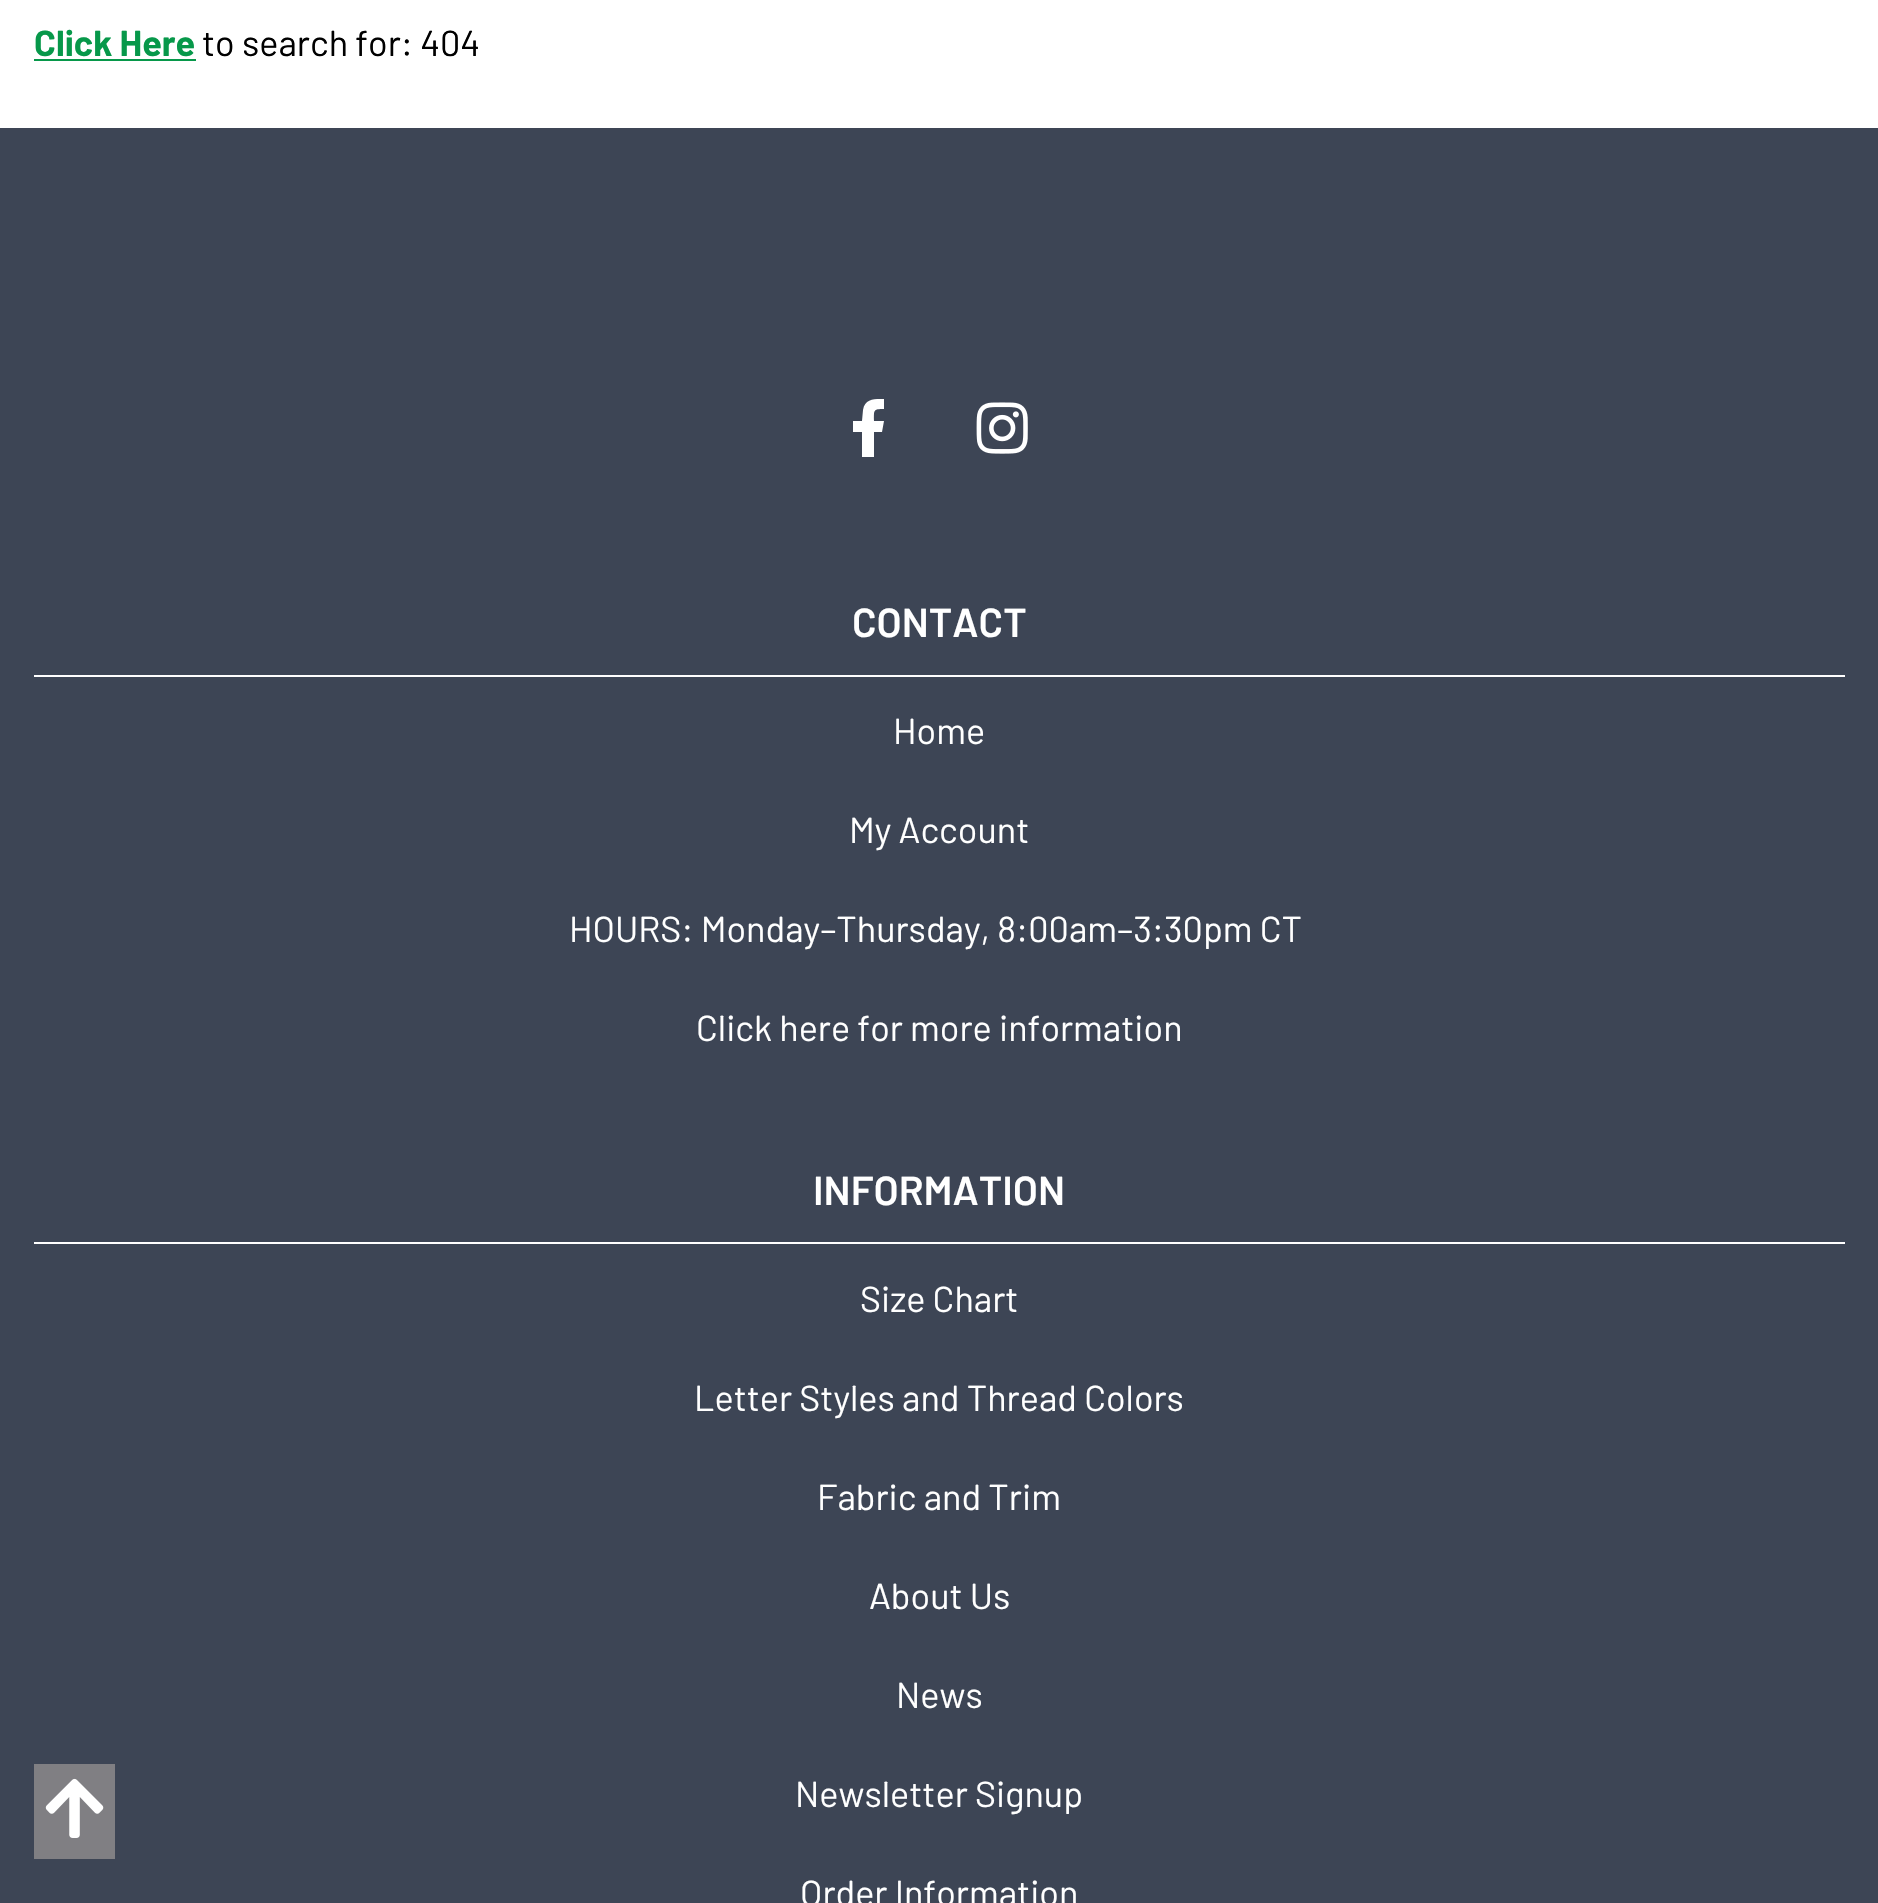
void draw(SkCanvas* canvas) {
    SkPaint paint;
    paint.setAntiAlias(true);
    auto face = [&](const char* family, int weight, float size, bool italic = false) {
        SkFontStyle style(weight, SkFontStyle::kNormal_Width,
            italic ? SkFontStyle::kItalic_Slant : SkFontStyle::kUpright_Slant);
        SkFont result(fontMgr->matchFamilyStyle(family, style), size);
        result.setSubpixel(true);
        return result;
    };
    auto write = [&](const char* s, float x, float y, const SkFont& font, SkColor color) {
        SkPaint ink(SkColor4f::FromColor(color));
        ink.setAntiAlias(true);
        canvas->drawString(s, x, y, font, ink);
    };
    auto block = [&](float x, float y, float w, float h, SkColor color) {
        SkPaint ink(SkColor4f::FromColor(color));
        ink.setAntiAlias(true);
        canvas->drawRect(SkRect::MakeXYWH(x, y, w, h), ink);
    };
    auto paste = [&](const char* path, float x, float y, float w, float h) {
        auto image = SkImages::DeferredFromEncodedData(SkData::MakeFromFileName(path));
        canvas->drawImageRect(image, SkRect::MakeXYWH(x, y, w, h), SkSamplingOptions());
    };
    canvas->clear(SK_ColorWHITE);
    auto kFont1 = face("Barlow", 700, 36);
    write("Click Here", 34, 56, kFont1, SkColorSetRGB(7, 152, 74));
    block(34, 59, 162, 2, SkColorSetRGB(7, 152, 74));
    auto kFont2 = face("Barlow", 400, 36);
    write("to search for: 404", 202, 56, kFont2, SK_ColorBLACK);
    block(0, 128, 1878, 1775, SkColorSetRGB(61, 69, 85));
    paint.setColor(SK_ColorWHITE);
    canvas->drawPath(SkPathBuilder().moveTo(882, 432).lineTo(874, 432).lineTo(874, 457).lineTo(862, 457).lineTo(862, 432).lineTo(853, 432).lineTo(853, 421).lineTo(862, 421).lineTo(863, 410).cubicTo(865, 398, 875, 399, 884, 399).lineTo(884, 409).cubicTo(873, 409, 874, 410, 874, 421).lineTo(884, 421).close().detach(), paint);
    paste("pic1.png", 976, 402, 52, 52);
    auto kFont3 = face("Barlow", 600, 40.5f);
    write("CONTACT", 852, 637, kFont3, SK_ColorWHITE);
    block(34, 675, 1811, 2, SK_ColorWHITE);
    write("Home", 893, 744, kFont2, SK_ColorWHITE);
    write("My Account", 849, 843, kFont2, SK_ColorWHITE);
    write("HOURS: Monday–Thursday, 8:00 am–3:30 pm CT", 569, 942, kFont2, SK_ColorWHITE);
    write("Click here for more information", 696, 1041, kFont2, SK_ColorWHITE);
    write("INFORMATION", 813, 1205, kFont3, SK_ColorWHITE);
    block(34, 1242, 1811, 2, SK_ColorWHITE);
    write("Size Chart", 860, 1312, kFont2, SK_ColorWHITE);
    write("Letter Styles and Thread Colors", 694, 1411, kFont2, SK_ColorWHITE);
    write("Fabric and Trim", 817, 1510, kFont2, SK_ColorWHITE);
    write("About Us", 869, 1609, kFont2, SK_ColorWHITE);
    write("News", 896, 1708, kFont2, SK_ColorWHITE);
    write("Newsletter Signup", 795, 1807, kFont2, SK_ColorWHITE);
    write("Order Information", 800, 1906, kFont2, SK_ColorWHITE);
    block(34, 1764, 81, 95, SkColorSetRGB(128, 127, 131));
    paste("pic2.png", 45, 1778, 59, 60);
}
